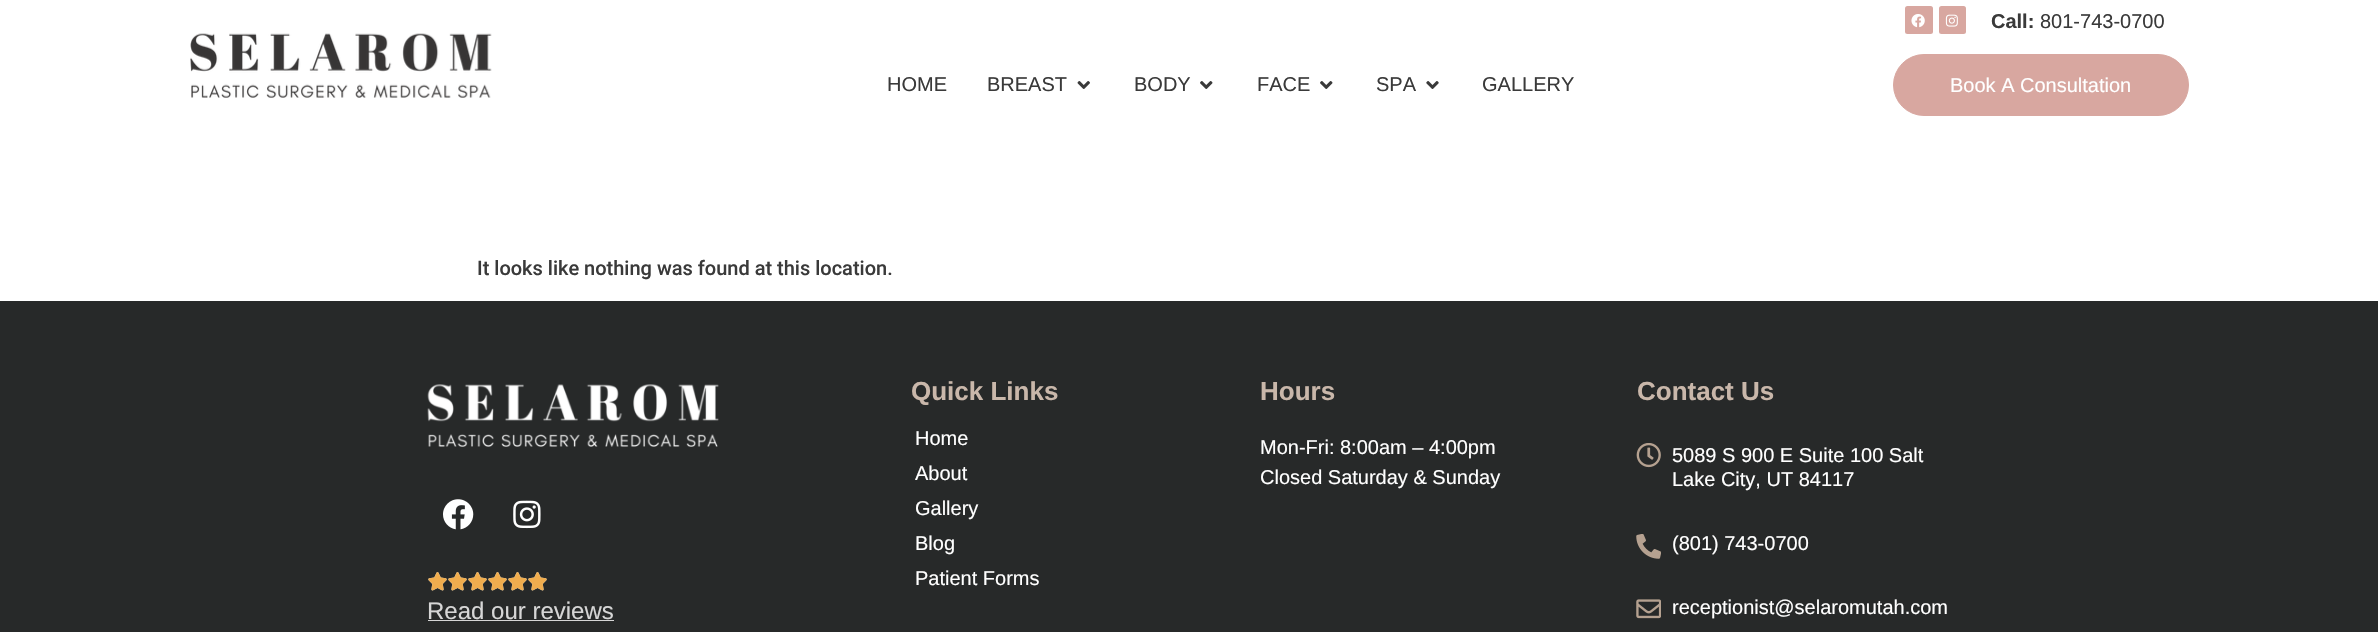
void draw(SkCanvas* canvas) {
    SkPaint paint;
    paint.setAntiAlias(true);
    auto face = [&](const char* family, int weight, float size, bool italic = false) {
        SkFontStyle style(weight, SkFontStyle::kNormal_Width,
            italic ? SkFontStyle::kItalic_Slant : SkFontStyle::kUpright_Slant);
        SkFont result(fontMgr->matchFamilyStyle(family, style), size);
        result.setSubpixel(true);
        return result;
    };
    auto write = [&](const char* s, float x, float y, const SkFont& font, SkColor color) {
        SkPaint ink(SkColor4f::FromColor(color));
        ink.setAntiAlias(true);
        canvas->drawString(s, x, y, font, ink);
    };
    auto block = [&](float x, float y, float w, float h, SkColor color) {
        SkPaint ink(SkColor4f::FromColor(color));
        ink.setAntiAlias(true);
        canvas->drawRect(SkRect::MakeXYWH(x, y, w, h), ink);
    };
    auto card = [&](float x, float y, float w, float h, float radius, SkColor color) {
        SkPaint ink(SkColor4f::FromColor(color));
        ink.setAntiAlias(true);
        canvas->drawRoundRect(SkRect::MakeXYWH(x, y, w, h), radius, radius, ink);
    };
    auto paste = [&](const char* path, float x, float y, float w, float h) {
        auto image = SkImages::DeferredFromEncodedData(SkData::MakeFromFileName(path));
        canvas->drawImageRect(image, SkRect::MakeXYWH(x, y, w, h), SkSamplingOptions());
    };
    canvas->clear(SK_ColorWHITE);
    card(1905, 6, 28, 28, 2.5f, SkColorSetRGB(216, 167, 160));
    paste("pic1.png", 1911, 14, 14, 14);
    card(1939, 6, 27, 28, 2.5f, SkColorSetRGB(216, 167, 160));
    paste("pic2.png", 1945, 14, 13, 13);
    auto kFont1 = face("Liberation Sans", 700, 20);
    write("Call:", 1991, 28, kFont1, SkColorSetRGB(58, 58, 58));
    auto kFont2 = face("Liberation Sans", 400, 20);
    write("801-743-0700", 2040, 28, kFont2, SkColorSetRGB(58, 58, 58));
    paste("pic3.png", 190, 33, 302, 65);
    write("HOME", 887, 91, kFont2, SkColorSetRGB(58, 58, 58));
    write("BREAST", 987, 91, kFont2, SkColorSetRGB(58, 58, 58));
    paste("pic4.png", 1077, 81, 13, 8);
    write("BODY", 1134, 91, kFont2, SkColorSetRGB(58, 58, 58));
    paste("pic5.png", 1200, 81, 13, 8);
    write("FACE", 1257, 91, kFont2, SkColorSetRGB(58, 58, 58));
    paste("pic5.png", 1320, 81, 13, 8);
    write("SPA", 1376, 91, kFont2, SkColorSetRGB(58, 58, 58));
    paste("pic6.png", 1426, 81, 13, 8);
    write("GALLERY", 1482, 91, kFont2, SkColorSetRGB(58, 58, 58));
    paint.setColor(SkColorSetRGB(216, 167, 160));
    canvas->drawRoundRect(SkRect::MakeXYWH(1893.5f, 54.5f, 295, 61), 30.5f, 30.5f, paint);
    paint.setStyle(SkPaint::kStroke_Style);
    paint.setStrokeWidth(1);
    canvas->drawRoundRect(SkRect::MakeXYWH(1893.5f, 54.5f, 295, 61), 30.5f, 30.5f, paint);
    write("Book A Consultation", 1950, 92, kFont2, SK_ColorWHITE);
    auto kFont3 = face("Roboto", 500, 20);
    write("It looks like nothing was found at this location.", 477, 275, kFont3, SkColorSetRGB(58, 58, 58));
    block(0, 301, 2378, 331, SkColorSetRGB(39, 41, 41));
    auto kFont4 = face("Liberation Sans", 700, 26);
    write("Quick Links", 911, 400, kFont4, SkColorSetRGB(201, 183, 170));
    write("Home", 915, 445, kFont2, SK_ColorWHITE);
    write("About", 915, 480, kFont2, SK_ColorWHITE);
    write("Gallery", 915, 515, kFont2, SK_ColorWHITE);
    write("Blog", 915, 550, kFont2, SK_ColorWHITE);
    write("Patient Forms", 915, 585, kFont2, SK_ColorWHITE);
    write("Hours", 1260, 400, kFont4, SkColorSetRGB(201, 183, 170));
    write("Mon-Fri: 8:00am – 4:00pm", 1260, 454, kFont2, SK_ColorWHITE);
    write("Closed Saturday & Sunday", 1260, 484, kFont2, SK_ColorWHITE);
    write("Contact Us", 1637, 400, kFont4, SkColorSetRGB(201, 183, 170));
    paste("pic7.png", 1636, 443, 25, 25);
    write("5089 S 900 E Suite 100 Salt", 1672, 462, kFont2, SK_ColorWHITE);
    write("Lake City, UT 84117", 1672, 486, kFont2, SK_ColorWHITE);
    paste("pic8.png", 1636, 534, 25, 25);
    write("(801) 743-0700", 1672, 550, kFont2, SK_ColorWHITE);
    paste("pic9.png", 1636, 599, 25, 20);
    write("receptionist@selaromutah.com", 1672, 614, kFont2, SK_ColorWHITE);
    paste("pic10.png", 427, 384, 292, 63);
    paste("pic11.png", 443, 499, 31, 31);
    paste("pic12.png", 513, 500, 28, 29);
    paste("pic13.png", 428, 572, 19, 19);
    paste("pic14.png", 428, 572, 19, 19);
    paste("pic13.png", 448, 572, 19, 19);
    paste("pic14.png", 448, 572, 19, 19);
    paste("pic13.png", 468, 572, 19, 19);
    paste("pic14.png", 468, 572, 19, 19);
    paste("pic13.png", 488, 572, 19, 19);
    paste("pic14.png", 488, 572, 19, 19);
    paste("pic13.png", 508, 572, 19, 19);
    paste("pic14.png", 508, 572, 19, 19);
    paste("pic13.png", 528, 572, 19, 19);
    paste("pic14.png", 528, 572, 19, 19);
    auto kFont5 = face("Liberation Sans", 400, 24);
    write("Read our reviews", 427, 619, kFont5, SkColorSetRGB(214, 214, 214));
    block(428, 620, 186, 1, SkColorSetRGB(214, 214, 214));
}
